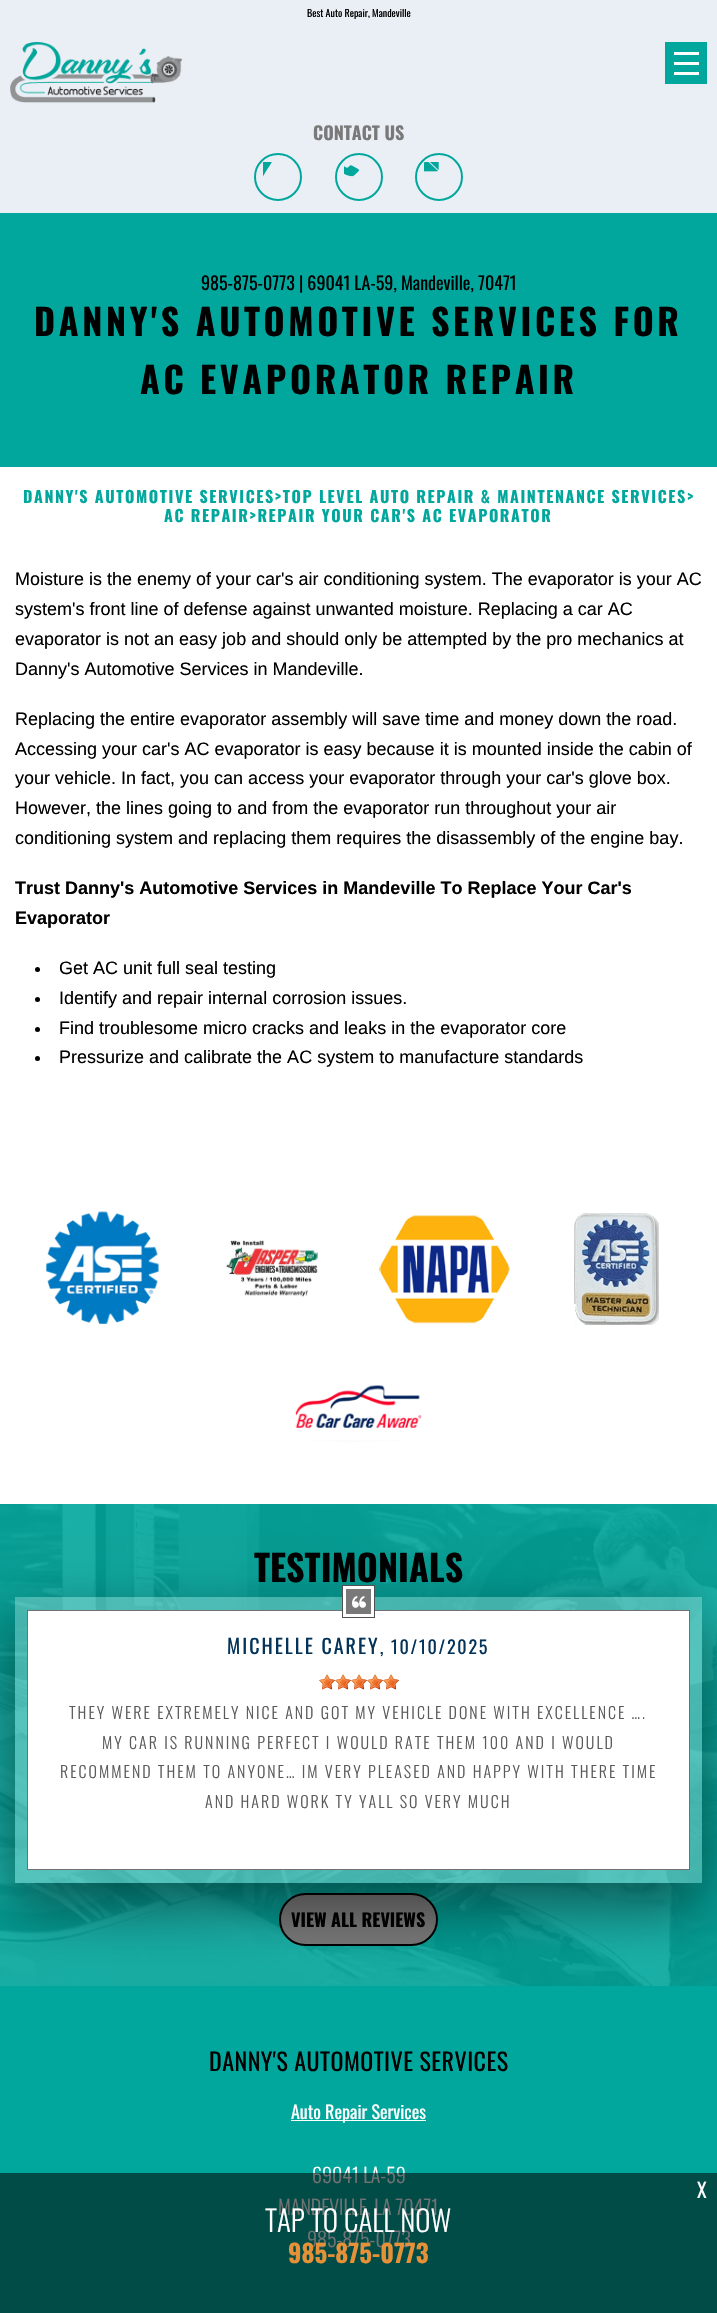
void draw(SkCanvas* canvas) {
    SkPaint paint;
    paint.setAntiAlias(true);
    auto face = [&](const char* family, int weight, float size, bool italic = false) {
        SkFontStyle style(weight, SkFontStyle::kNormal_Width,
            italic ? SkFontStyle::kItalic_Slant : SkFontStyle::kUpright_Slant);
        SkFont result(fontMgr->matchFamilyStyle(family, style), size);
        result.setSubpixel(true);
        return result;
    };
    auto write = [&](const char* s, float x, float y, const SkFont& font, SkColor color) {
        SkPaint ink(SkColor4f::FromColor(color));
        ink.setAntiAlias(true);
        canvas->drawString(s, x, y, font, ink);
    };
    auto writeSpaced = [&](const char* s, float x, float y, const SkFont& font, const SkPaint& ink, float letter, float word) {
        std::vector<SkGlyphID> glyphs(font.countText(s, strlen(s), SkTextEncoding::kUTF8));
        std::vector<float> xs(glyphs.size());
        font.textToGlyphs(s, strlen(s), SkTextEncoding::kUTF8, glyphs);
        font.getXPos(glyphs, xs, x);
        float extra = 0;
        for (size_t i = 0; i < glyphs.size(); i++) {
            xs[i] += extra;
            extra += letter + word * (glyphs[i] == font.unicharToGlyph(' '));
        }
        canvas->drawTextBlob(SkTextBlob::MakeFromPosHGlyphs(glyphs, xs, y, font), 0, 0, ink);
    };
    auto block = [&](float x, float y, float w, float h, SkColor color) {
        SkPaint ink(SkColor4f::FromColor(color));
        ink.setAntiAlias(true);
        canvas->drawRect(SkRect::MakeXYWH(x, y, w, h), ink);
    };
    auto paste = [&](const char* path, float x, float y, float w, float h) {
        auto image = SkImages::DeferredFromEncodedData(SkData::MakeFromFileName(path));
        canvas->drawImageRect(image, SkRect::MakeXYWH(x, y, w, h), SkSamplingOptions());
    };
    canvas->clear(SK_ColorWHITE);
    block(0, 0, 717, 213, SkColorSetRGB(234, 239, 245));
    auto kFont1 = face("Oswald", 400, 10);
    write("Best Auto Repair, Mandeville", 307, 17, kFont1, SK_ColorBLACK);
    paste("pic1.png", 10, 42, 172, 61);
    block(665, 42, 42, 42, SkColorSetRGB(1, 167, 157));
    block(674, 52, 25, 3, SK_ColorWHITE);
    block(674, 62, 25, 3, SK_ColorWHITE);
    block(674, 72, 25, 3, SK_ColorWHITE);
    auto kFont2 = face("Oswald", 700, 18);
    write("CONTACT US", 313, 140, kFont2, SkColorSetRGB(121, 121, 121));
    paint.setStyle(SkPaint::kStroke_Style);
    paint.setStrokeWidth(2);
    paint.setColor(SkColorSetRGB(1, 167, 157));
    canvas->drawCircle(278, 177, 23, paint);
    paste("pic2.png", 263, 162, 9, 15);
    canvas->drawCircle(359, 177, 23, paint);
    paste("pic3.png", 344, 165, 15, 12);
    canvas->drawCircle(439, 177, 23, paint);
    paste("pic4.png", 424, 162, 15, 10);
    block(0, 213, 717, 254, SkColorSetRGB(1, 167, 157));
    auto kFont3 = face("Oswald", 400, 18);
    write("985-875-0773 | 69041 LA-59, Mandeville, 70471", 201, 290, kFont3, SK_ColorBLACK);
    auto kFont4 = face("Oswald", 700, 36);
    paint.setStyle(SkPaint::kFill_Style);
    paint.setColor(SK_ColorBLACK);
    writeSpaced("DANNY'S AUTOMOTIVE SERVICES FOR", 34, 336, kFont4, paint, 3.6f, 0);
    writeSpaced("AC EVAPORATOR REPAIR", 140, 394, kFont4, paint, 3.6f, 0);
    auto kFont5 = face("Oswald", 700, 16);
    paint.setColor(SkColorSetRGB(1, 167, 157));
    writeSpaced("DANNY'S AUTOMOTIVE SERVICES>TOP LEVEL AUTO REPAIR & MAINTENANCE SERVICES>", 23, 503, kFont5, paint, 1.6f, 0);
    writeSpaced("AC REPAIR>REPAIR YOUR CAR'S AC EVAPORATOR", 164, 522, kFont5, paint, 1.6f, 0);
    auto kFont6 = face("Liberation Sans", 400, 18);
    write("Moisture is the enemy of your car's air conditioning system. The evaporator is your AC", 15, 585, kFont6, SK_ColorBLACK);
    write("system's front line of defense against unwanted moisture. Replacing a car AC", 15, 615, kFont6, SK_ColorBLACK);
    write("evaporator is not an easy job and should only be attempted by the pro mechanics at", 15, 645, kFont6, SK_ColorBLACK);
    write("Danny's Automotive Services in Mandeville.", 15, 675, kFont6, SK_ColorBLACK);
    write("Replacing the entire evaporator assembly will save time and money down the road.", 15, 725, kFont6, SK_ColorBLACK);
    write("Accessing your car's AC evaporator is easy because it is mounted inside the cabin of", 15, 755, kFont6, SK_ColorBLACK);
    write("your vehicle. In fact, you can access your evaporator through your car's glove box.", 15, 784, kFont6, SK_ColorBLACK);
    write("However, the lines going to and from the evaporator run throughout your air", 15, 814, kFont6, SK_ColorBLACK);
    write("conditioning system and replacing them requires the disassembly of the engine bay.", 15, 844, kFont6, SK_ColorBLACK);
    auto kFont7 = face("Liberation Sans", 700, 18);
    write("Trust Danny's Automotive Services in Mandeville To Replace Your Car's", 15, 894, kFont7, SK_ColorBLACK);
    write("Evaporator", 15, 924, kFont7, SK_ColorBLACK);
    paint.setColor(SK_ColorBLACK);
    canvas->drawCircle(37.5f, 969.5f, 2.5f, paint);
    write("Get AC unit full seal testing", 59, 974, kFont6, SK_ColorBLACK);
    canvas->drawCircle(37.5f, 999.5f, 2.5f, paint);
    write("Identify and repair internal corrosion issues.", 59, 1004, kFont6, SK_ColorBLACK);
    canvas->drawCircle(37.5f, 1029.5f, 2.5f, paint);
    write("Find troublesome micro cracks and leaks in the evaporator core", 59, 1034, kFont6, SK_ColorBLACK);
    canvas->drawCircle(37.5f, 1058.5f, 2.5f, paint);
    write("Pressurize and calibrate the AC system to manufacture standards", 59, 1063, kFont6, SK_ColorBLACK);
    paste("pic5.png", 46, 1211, 113, 113);
    paste("pic6.png", 226, 1240, 92, 57);
    paste("pic7.png", 379, 1215, 131, 109);
    paste("pic8.png", 574, 1213, 85, 112);
    paste("pic9.png", 295, 1385, 127, 57);
    paste("pic10.png", 0, 1504, 717, 482);
    write("TESTIMONIALS", 254, 1582, kFont4, SK_ColorBLACK);
    paint.setColor(SkColorSetRGB(121, 121, 121));
    canvas->drawRoundRect(SkRect::MakeXYWH(280, 1894, 157, 51), 25.5f, 25.5f, paint);
    paint.setStyle(SkPaint::kStroke_Style);
    paint.setColor(SK_ColorBLACK);
    canvas->drawRoundRect(SkRect::MakeXYWH(280, 1894, 157, 51), 25.5f, 25.5f, paint);
    block(0, 1986, 717, 327, SkColorSetRGB(1, 167, 157));
    canvas->save();
    canvas->clipPath(SkPathBuilder(SkPathFillType::kEvenOdd).moveTo(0, 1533).lineTo(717, 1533).lineTo(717, 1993).lineTo(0, 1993).close().moveTo(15, 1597).lineTo(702, 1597).lineTo(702, 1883).lineTo(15, 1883).close().detach(), true);
    paint.setStyle(SkPaint::kFill_Style);
    paint.setColor(SkColorSetARGB(128, 0, 0, 0));
    paint.setMaskFilter(SkMaskFilter::MakeBlur(kNormal_SkBlurStyle, 28.5f));
    canvas->drawRect(SkRect::MakeXYWH(15, 1620, 687, 286), paint);
    paint.setMaskFilter(nullptr);
    canvas->restore();
    block(15, 1597, 687, 286, SkColorSetARGB(64, 255, 255, 255));
    paint.setColor(SK_ColorWHITE);
    canvas->drawRect(SkRect::MakeXYWH(27.5f, 1610.5f, 662, 259), paint);
    paint.setStyle(SkPaint::kStroke_Style);
    paint.setStrokeWidth(1);
    paint.setColor(SkColorSetRGB(112, 112, 112));
    canvas->drawRect(SkRect::MakeXYWH(27.5f, 1610.5f, 662, 259), paint);
    paint.setColor(SkColorSetRGB(81, 81, 81));
    canvas->drawRect(SkRect::MakeXYWH(342.5f, 1585.5f, 32, 32), paint);
    paint.setStyle(SkPaint::kFill_Style);
    paint.setColor(SkColorSetRGB(121, 121, 121));
    canvas->drawRect(SkRect::MakeXYWH(344.5f, 1587.5f, 28, 28), paint);
    paint.setStyle(SkPaint::kStroke_Style);
    paint.setStrokeWidth(3);
    paint.setColor(SK_ColorWHITE);
    canvas->drawRect(SkRect::MakeXYWH(344.5f, 1587.5f, 28, 28), paint);
    paste("pic11.png", 352, 1596, 14, 12);
    auto kFont8 = face("Oswald", 400, 20);
    paint.setStyle(SkPaint::kFill_Style);
    paint.setColor(SkColorSetRGB(3, 51, 89));
    writeSpaced("MICHELLE CAREY", 227, 1654, kFont8, paint, 2, 0);
    writeSpaced(", 10/10/2025", 380, 1654, kFont3, paint, 1.75f, 0);
    paste("pic12.png", 319, 1674, 80, 16);
    auto kFont9 = face("Oswald", 300, 16);
    paint.setColor(SkColorSetRGB(90, 90, 90));
    writeSpaced("THEY WERE EXTREMELY NICE AND GOT MY VEHICLE DONE WITH EXCELLENCE ….", 69, 1719, kFont9, paint, 2, 0);
    writeSpaced("MY CAR IS RUNNING PERFECT I WOULD RATE THEM 100 AND I WOULD", 102, 1749, kFont9, paint, 2, 0);
    writeSpaced("RECOMMEND THEM TO ANYONE… IM VERY PLEASED AND HAPPY WITH THERE TIME", 60, 1778, kFont9, paint, 2, 0);
    writeSpaced("AND HARD WORK TY YALL SO VERY MUCH", 205, 1808, kFont9, paint, 2, 0);
    write("VIEW ALL REVIEWS", 291, 1927, kFont2, SK_ColorBLACK);
    auto kFont10 = face("Oswald", 400, 24);
    paint.setColor(SK_ColorBLACK);
    writeSpaced("DANNY'S AUTOMOTIVE SERVICES", 209, 2071, kFont10, paint, 0.5f, 0);
    block(291, 2120, 135, 1, SK_ColorWHITE);
    write("Auto Repair Services", 291, 2119, kFont3, SK_ColorWHITE);
    auto kFont11 = face("Oswald", 300, 20);
    write("69041 LA-59", 312, 2183, kFont11, SK_ColorWHITE);
    write("MANDEVILLE, LA 70471", 278, 2215, kFont11, SK_ColorWHITE);
    write("985-875-0773", 307, 2247, kFont11, SK_ColorWHITE);
    block(0, 2173, 717, 140, SkColorSetARGB(140, 0, 0, 0));
    write("X", 697, 2198, kFont8, SK_ColorWHITE);
    auto kFont12 = face("Oswald", 300, 29);
    write("TAP TO CALL NOW", 265, 2232, kFont12, SK_ColorWHITE);
    auto kFont13 = face("Oswald", 700, 25);
    write("985-875-0773", 288, 2263, kFont13, SkColorSetRGB(230, 145, 56));
}
